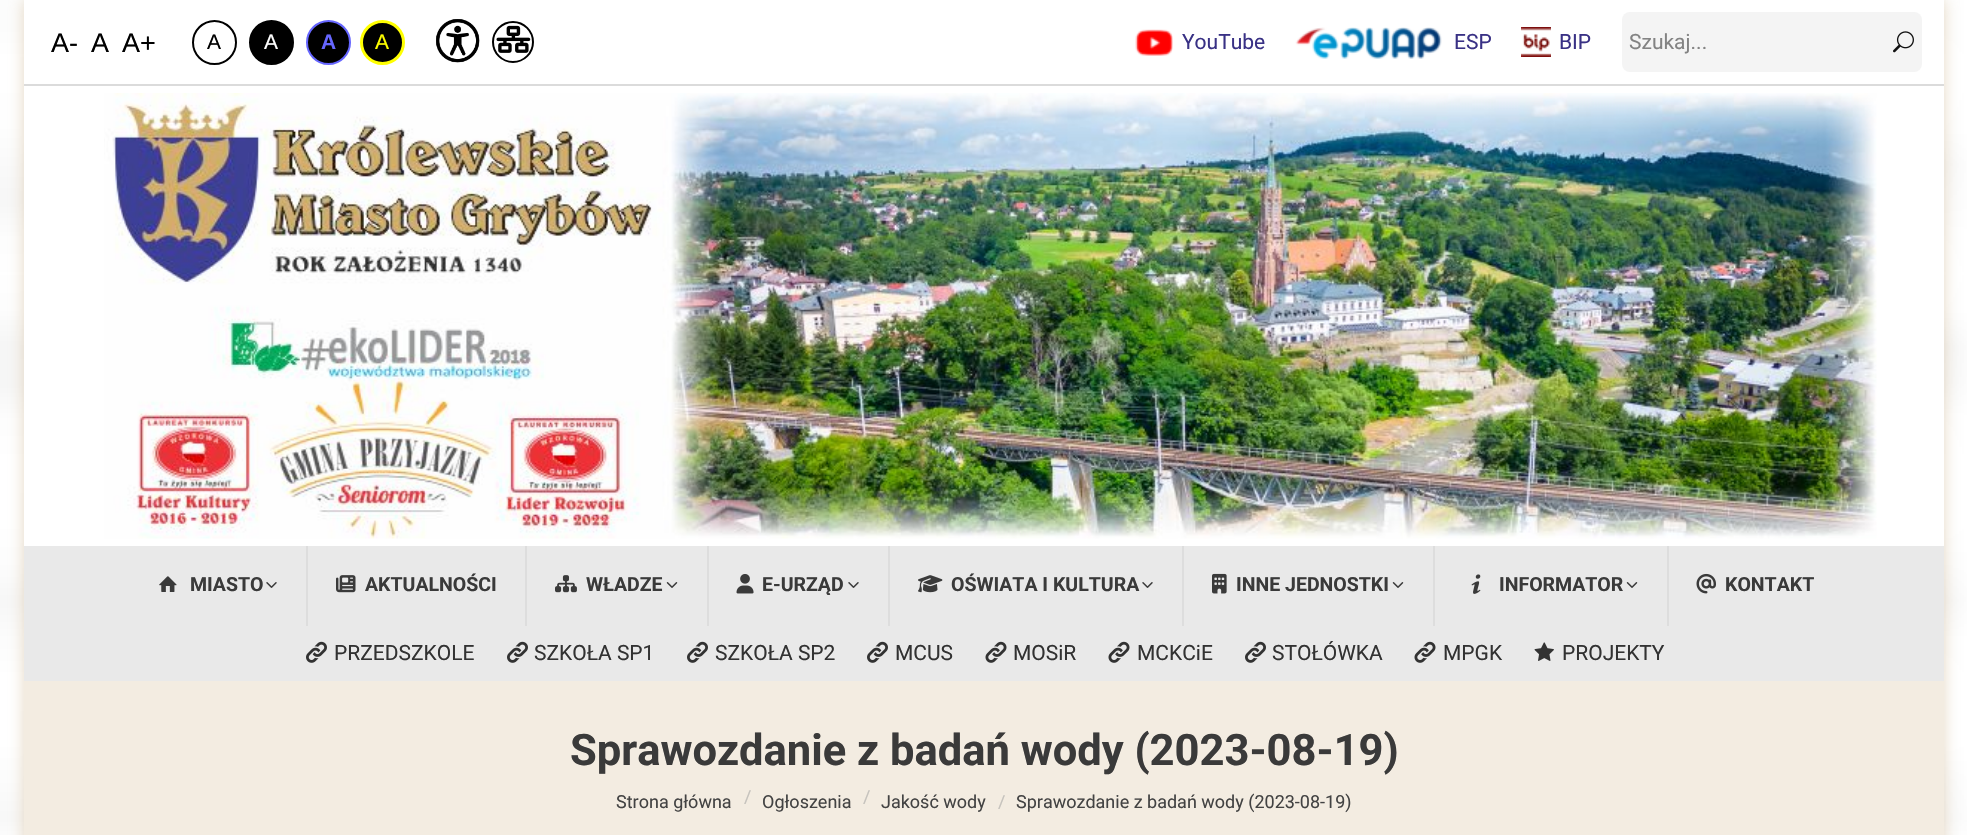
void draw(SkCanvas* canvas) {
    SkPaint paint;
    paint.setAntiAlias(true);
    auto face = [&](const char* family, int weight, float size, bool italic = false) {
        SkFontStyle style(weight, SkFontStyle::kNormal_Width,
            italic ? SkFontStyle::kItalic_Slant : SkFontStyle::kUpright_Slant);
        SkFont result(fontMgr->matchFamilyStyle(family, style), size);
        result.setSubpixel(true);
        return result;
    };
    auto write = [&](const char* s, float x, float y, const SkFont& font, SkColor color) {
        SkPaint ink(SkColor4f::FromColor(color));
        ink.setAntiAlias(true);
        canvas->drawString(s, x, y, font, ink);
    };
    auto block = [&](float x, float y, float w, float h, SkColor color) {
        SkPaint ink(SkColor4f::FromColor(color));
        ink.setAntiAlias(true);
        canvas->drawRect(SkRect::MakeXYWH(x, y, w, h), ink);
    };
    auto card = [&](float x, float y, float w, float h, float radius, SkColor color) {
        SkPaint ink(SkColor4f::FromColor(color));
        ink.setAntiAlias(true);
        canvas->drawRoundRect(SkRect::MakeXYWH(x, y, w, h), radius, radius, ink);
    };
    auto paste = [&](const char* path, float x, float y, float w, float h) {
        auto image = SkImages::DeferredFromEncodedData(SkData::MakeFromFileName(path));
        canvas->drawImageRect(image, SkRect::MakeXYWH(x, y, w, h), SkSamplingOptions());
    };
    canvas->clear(SK_ColorWHITE);
    paste("pic1.png", 0, 0, 1967, 835);
    paint.setColor(SkColorSetARGB(99, 190, 158, 103));
    paint.setMaskFilter(SkMaskFilter::MakeBlur(kNormal_SkBlurStyle, 7.5f));
    canvas->drawRect(SkRect::MakeXYWH(24, 0, 1920, 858), paint);
    paint.setMaskFilter(nullptr);
    block(24, 0, 1920, 546, SK_ColorWHITE);
    auto kFont1 = face("Liberation Sans", 400, 27);
    write("A-", 51, 52, kFont1, SK_ColorBLACK);
    write("A", 91, 52, kFont1, SK_ColorBLACK);
    write("A+", 122, 52, kFont1, SK_ColorBLACK);
    paint.setStyle(SkPaint::kStroke_Style);
    paint.setStrokeWidth(2);
    paint.setColor(SK_ColorBLACK);
    canvas->drawCircle(214.5f, 42.5f, 21.5f, paint);
    auto kFont2 = face("Liberation Sans", 400, 21);
    write("A", 207, 49, kFont2, SK_ColorBLACK);
    paint.setStyle(SkPaint::kFill_Style);
    canvas->drawCircle(271.5f, 42.5f, 21, paint);
    paint.setStyle(SkPaint::kStroke_Style);
    paint.setStrokeWidth(3);
    canvas->drawCircle(271.5f, 42.5f, 21, paint);
    write("A", 264, 49, kFont2, SK_ColorWHITE);
    paint.setStyle(SkPaint::kFill_Style);
    canvas->drawCircle(328.5f, 42.5f, 21.5f, paint);
    paint.setStyle(SkPaint::kStroke_Style);
    paint.setStrokeWidth(2);
    paint.setColor(SkColorSetRGB(102, 102, 255));
    canvas->drawCircle(328.5f, 42.5f, 21.5f, paint);
    auto kFont3 = face("Liberation Sans", 700, 21);
    write("A", 321, 49, kFont3, SkColorSetRGB(102, 102, 255));
    paint.setStyle(SkPaint::kFill_Style);
    paint.setColor(SK_ColorBLACK);
    canvas->drawCircle(382.5f, 42.5f, 21, paint);
    paint.setStyle(SkPaint::kStroke_Style);
    paint.setStrokeWidth(3);
    paint.setColor(SkColorSetRGB(255, 255, 0));
    canvas->drawCircle(382.5f, 42.5f, 21, paint);
    write("A", 375, 49, kFont2, SkColorSetRGB(255, 255, 0));
    paste("pic2.png", 436, 19, 44, 44);
    paint.setStrokeWidth(2);
    paint.setColor(SK_ColorBLACK);
    canvas->drawCircle(513, 42, 20, paint);
    paste("pic3.png", 496, 25, 35, 28);
    paste("pic4.png", 1135, 29, 38, 27);
    auto kFont4 = face("Roboto", 400, 21);
    write("YouTube", 1182, 49, kFont4, SkColorSetRGB(57, 49, 133));
    paste("pic5.png", 1295, 27, 147, 32);
    write("ESP", 1454, 49, kFont4, SkColorSetRGB(57, 49, 133));
    paste("pic6.png", 1521, 27, 30, 30);
    write("BIP", 1559, 49, kFont4, SkColorSetRGB(57, 49, 133));
    card(1622, 12, 300, 60, 8, SkColorSetRGB(244, 244, 244));
    write("Szukaj...", 1629, 49, kFont4, SkColorSetRGB(131, 131, 131));
    paste("pic7.png", 1893, 31, 21, 22);
    block(24, 84, 1920, 2, SkColorSetRGB(219, 219, 219));
    paste("pic8.png", 104, 93, 1773, 446);
    block(24, 546, 1920, 135, SkColorSetRGB(233, 233, 233));
    block(306, 546, 2, 80, SkColorSetRGB(221, 221, 221));
    paste("pic9.png", 159, 576, 18, 16);
    auto kFont5 = face("Roboto", 700, 19.5f);
    write("MIASTO", 190, 591, kFont5, SkColorSetRGB(58, 58, 58));
    paste("pic10.png", 266, 582, 11, 6);
    block(525, 546, 2, 80, SkColorSetRGB(221, 221, 221));
    paste("pic11.png", 336, 575, 20, 18);
    write("AKTUALNOŚCI", 365, 591, kFont5, SkColorSetRGB(58, 58, 58));
    block(707, 546, 2, 80, SkColorSetRGB(221, 221, 221));
    paste("pic12.png", 555, 575, 22, 18);
    write("WŁADZE", 586, 591, kFont5, SkColorSetRGB(58, 58, 58));
    paste("pic13.png", 666, 582, 12, 6);
    block(888, 546, 2, 80, SkColorSetRGB(221, 221, 221));
    paste("pic14.png", 736, 574, 18, 20);
    write("E-URZĄD", 762, 591, kFont5, SkColorSetRGB(58, 58, 58));
    paste("pic10.png", 848, 582, 11, 6);
    block(1182, 546, 2, 80, SkColorSetRGB(221, 221, 221));
    paste("pic15.png", 918, 575, 25, 18);
    write("OŚWIATA I KULTURA", 951, 591, kFont5, SkColorSetRGB(58, 58, 58));
    paste("pic10.png", 1142, 582, 11, 6);
    block(1433, 546, 2, 80, SkColorSetRGB(221, 221, 221));
    paste("pic16.png", 1212, 573, 15, 21);
    write("INNE JEDNOSTKI", 1236, 591, kFont5, SkColorSetRGB(58, 58, 58));
    paste("pic13.png", 1392, 582, 12, 6);
    block(1667, 546, 2, 80, SkColorSetRGB(221, 221, 221));
    paste("pic17.png", 1471, 574, 10, 20);
    write("INFORMATOR", 1499, 591, kFont5, SkColorSetRGB(58, 58, 58));
    paste("pic13.png", 1626, 582, 12, 6);
    paste("pic18.png", 1696, 573, 20, 21);
    write("KONTAKT", 1725, 591, kFont5, SkColorSetRGB(58, 58, 58));
    paste("pic19.png", 306, 641, 21, 22);
    write("PRZEDSZKOLE", 334, 660, kFont4, SkColorSetRGB(50, 50, 50));
    paste("pic19.png", 507, 641, 21, 22);
    write("SZKOŁA SP1", 534, 660, kFont4, SkColorSetRGB(50, 50, 50));
    paste("pic19.png", 687, 641, 21, 22);
    write("SZKOŁA SP2", 715, 660, kFont4, SkColorSetRGB(50, 50, 50));
    paste("pic19.png", 867, 641, 21, 22);
    write("MCUS", 895, 660, kFont4, SkColorSetRGB(50, 50, 50));
    paste("pic20.png", 985, 641, 22, 22);
    write("MOSiR", 1013, 660, kFont4, SkColorSetRGB(50, 50, 50));
    paste("pic20.png", 1108, 641, 22, 22);
    write("MCKCiE", 1137, 660, kFont4, SkColorSetRGB(50, 50, 50));
    paste("pic19.png", 1245, 641, 21, 22);
    write("STOŁÓWKA", 1272, 660, kFont4, SkColorSetRGB(50, 50, 50));
    paste("pic20.png", 1414, 641, 22, 22);
    write("MPGK", 1443, 660, kFont4, SkColorSetRGB(50, 50, 50));
    paste("pic21.png", 1534, 642, 20, 19);
    write("PROJEKTY", 1562, 660, kFont4, SkColorSetRGB(50, 50, 50));
    block(24, 681, 1920, 154, SkColorSetRGB(243, 236, 225));
    auto kFont6 = face("Roboto", 700, 43.5f);
    write("Sprawozdanie z badań wody (2023-08-19)", 570, 765, kFont6, SkColorSetRGB(58, 58, 58));
    auto kFont7 = face("Roboto", 400, 18);
    write("Strona główna", 616, 808, kFont7, SkColorSetRGB(67, 67, 67));
    write("/", 744, 803, kFont7, SkColorSetRGB(198, 195, 189));
    write("Ogłoszenia", 762, 808, kFont7, SkColorSetRGB(67, 67, 67));
    write("/", 863, 803, kFont7, SkColorSetRGB(198, 195, 189));
    write("Jakość wody", 881, 808, kFont7, SkColorSetRGB(67, 67, 67));
    write("/", 998, 808, kFont7, SkColorSetRGB(198, 195, 189));
    write("Sprawozdanie z badań wody (2023-08-19)", 1016, 808, kFont7, SkColorSetRGB(67, 67, 67));
}
